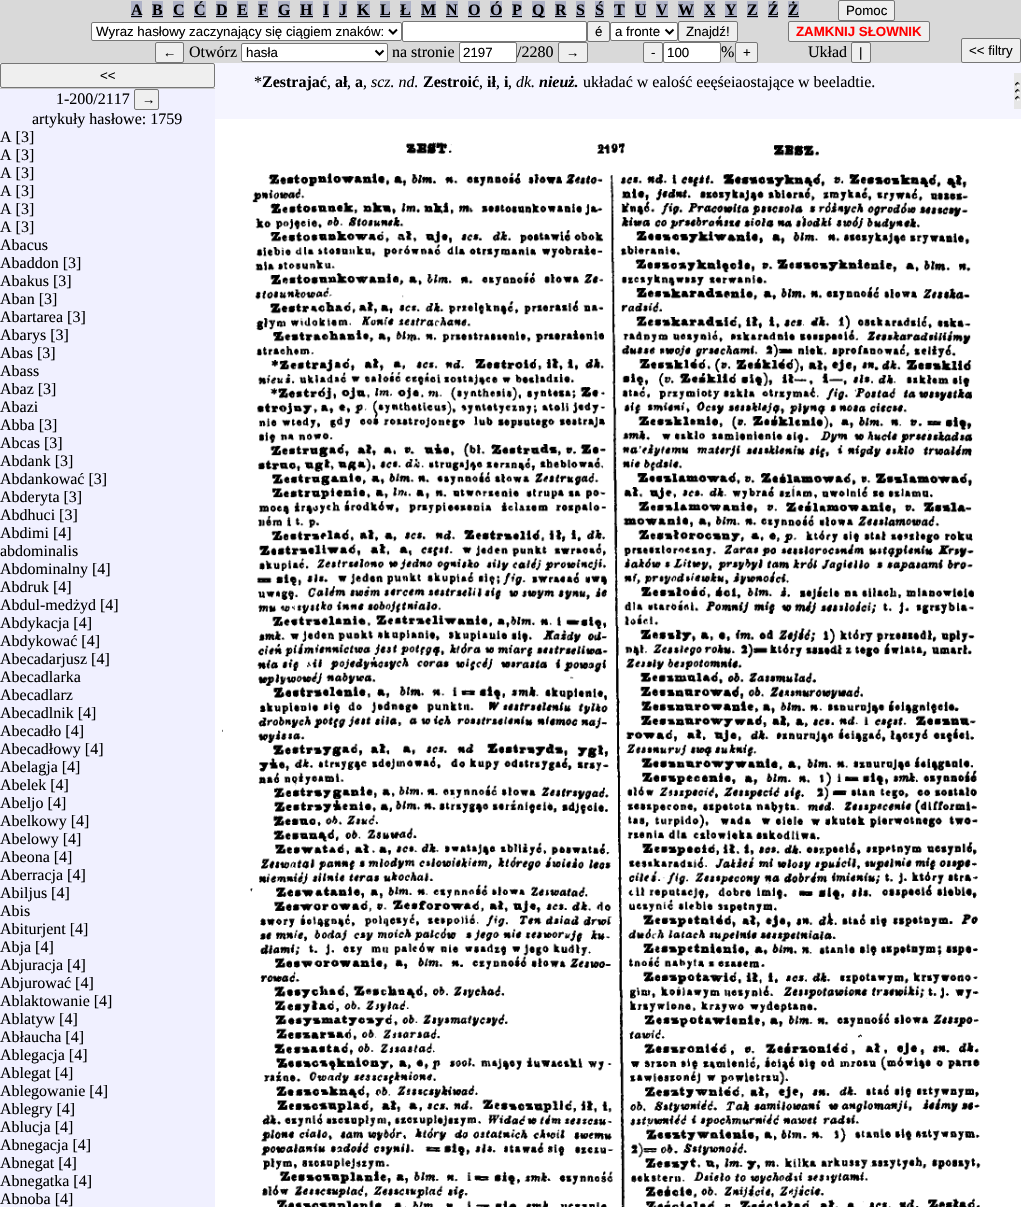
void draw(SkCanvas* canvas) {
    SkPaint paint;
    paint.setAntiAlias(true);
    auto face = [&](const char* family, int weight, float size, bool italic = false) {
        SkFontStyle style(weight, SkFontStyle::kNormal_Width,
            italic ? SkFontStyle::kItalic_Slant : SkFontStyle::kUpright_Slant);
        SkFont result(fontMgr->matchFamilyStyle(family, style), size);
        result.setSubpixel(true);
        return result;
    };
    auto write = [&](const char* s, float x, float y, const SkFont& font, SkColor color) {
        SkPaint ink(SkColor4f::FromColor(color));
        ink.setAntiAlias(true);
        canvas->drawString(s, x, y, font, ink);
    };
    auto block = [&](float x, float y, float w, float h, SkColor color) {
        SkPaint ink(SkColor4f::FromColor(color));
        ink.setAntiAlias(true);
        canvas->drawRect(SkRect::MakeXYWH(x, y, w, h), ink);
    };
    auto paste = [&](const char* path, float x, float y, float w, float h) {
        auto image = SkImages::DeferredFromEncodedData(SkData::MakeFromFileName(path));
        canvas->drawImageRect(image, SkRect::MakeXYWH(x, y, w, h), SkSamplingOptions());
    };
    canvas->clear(SK_ColorWHITE);
    block(0, 0, 1021, 63, SkColorSetRGB(217, 217, 217));
    block(131, 1, 11, 17, SkColorSetRGB(174, 178, 199));
    auto kFont1 = face("Liberation Serif", 700, 16);
    write("A", 131, 15, kFont1, SK_ColorBLACK);
    block(131, 16, 11, 1, SK_ColorBLACK);
    block(152, 1, 11, 17, SkColorSetRGB(174, 178, 199));
    write("B", 152, 15, kFont1, SK_ColorBLACK);
    block(152, 16, 11, 1, SK_ColorBLACK);
    block(173, 1, 11, 17, SkColorSetRGB(174, 178, 199));
    write("C", 173, 15, kFont1, SK_ColorBLACK);
    block(173, 16, 11, 1, SK_ColorBLACK);
    block(194, 1, 12, 17, SkColorSetRGB(174, 178, 199));
    write("Ć", 194, 15, kFont1, SK_ColorBLACK);
    block(194, 16, 12, 1, SK_ColorBLACK);
    block(216, 1, 11, 17, SkColorSetRGB(174, 178, 199));
    write("D", 216, 15, kFont1, SK_ColorBLACK);
    block(216, 16, 11, 1, SK_ColorBLACK);
    block(237, 1, 11, 17, SkColorSetRGB(174, 178, 199));
    write("E", 237, 15, kFont1, SK_ColorBLACK);
    block(237, 16, 11, 1, SK_ColorBLACK);
    block(258, 1, 10, 17, SkColorSetRGB(174, 178, 199));
    write("F", 258, 15, kFont1, SK_ColorBLACK);
    block(258, 16, 10, 1, SK_ColorBLACK);
    block(278, 1, 12, 17, SkColorSetRGB(174, 178, 199));
    write("G", 278, 15, kFont1, SK_ColorBLACK);
    block(278, 16, 12, 1, SK_ColorBLACK);
    block(300, 1, 13, 17, SkColorSetRGB(174, 178, 199));
    write("H", 300, 15, kFont1, SK_ColorBLACK);
    block(300, 16, 13, 1, SK_ColorBLACK);
    block(323, 1, 6, 17, SkColorSetRGB(174, 178, 199));
    write("I", 323, 15, kFont1, SK_ColorBLACK);
    block(323, 16, 6, 1, SK_ColorBLACK);
    block(339, 1, 8, 17, SkColorSetRGB(174, 178, 199));
    write("J", 339, 15, kFont1, SK_ColorBLACK);
    block(339, 16, 8, 1, SK_ColorBLACK);
    block(357, 1, 13, 17, SkColorSetRGB(174, 178, 199));
    write("K", 357, 15, kFont1, SK_ColorBLACK);
    block(357, 16, 13, 1, SK_ColorBLACK);
    block(380, 1, 10, 17, SkColorSetRGB(174, 178, 199));
    write("L", 380, 15, kFont1, SK_ColorBLACK);
    block(380, 16, 10, 1, SK_ColorBLACK);
    block(400, 1, 11, 17, SkColorSetRGB(174, 178, 199));
    write("Ł", 400, 15, kFont1, SK_ColorBLACK);
    block(400, 16, 11, 1, SK_ColorBLACK);
    block(421, 1, 15, 17, SkColorSetRGB(174, 178, 199));
    write("M", 421, 15, kFont1, SK_ColorBLACK);
    block(421, 16, 15, 1, SK_ColorBLACK);
    block(446, 1, 12, 17, SkColorSetRGB(174, 178, 199));
    write("N", 446, 15, kFont1, SK_ColorBLACK);
    block(446, 16, 12, 1, SK_ColorBLACK);
    block(468, 1, 12, 17, SkColorSetRGB(174, 178, 199));
    write("O", 468, 15, kFont1, SK_ColorBLACK);
    block(468, 16, 12, 1, SK_ColorBLACK);
    block(490, 1, 12, 17, SkColorSetRGB(174, 178, 199));
    write("Ó", 490, 15, kFont1, SK_ColorBLACK);
    block(490, 16, 12, 1, SK_ColorBLACK);
    block(512, 1, 10, 17, SkColorSetRGB(174, 178, 199));
    write("P", 512, 15, kFont1, SK_ColorBLACK);
    block(512, 16, 10, 1, SK_ColorBLACK);
    block(532, 1, 13, 17, SkColorSetRGB(174, 178, 199));
    block(532, 16, 13, 1, SK_ColorBLACK);
    write("Q", 532, 15, kFont1, SK_ColorBLACK);
    block(555, 1, 11, 17, SkColorSetRGB(174, 178, 199));
    write("R", 555, 15, kFont1, SK_ColorBLACK);
    block(555, 16, 11, 1, SK_ColorBLACK);
    block(576, 1, 9, 17, SkColorSetRGB(174, 178, 199));
    write("S", 576, 15, kFont1, SK_ColorBLACK);
    block(576, 16, 9, 1, SK_ColorBLACK);
    block(595, 1, 9, 17, SkColorSetRGB(174, 178, 199));
    write("Ś", 595, 15, kFont1, SK_ColorBLACK);
    block(595, 16, 9, 1, SK_ColorBLACK);
    block(614, 1, 11, 17, SkColorSetRGB(174, 178, 199));
    write("T", 614, 15, kFont1, SK_ColorBLACK);
    block(614, 16, 11, 1, SK_ColorBLACK);
    block(635, 1, 11, 17, SkColorSetRGB(174, 178, 199));
    write("U", 635, 15, kFont1, SK_ColorBLACK);
    block(635, 16, 11, 1, SK_ColorBLACK);
    block(656, 1, 12, 17, SkColorSetRGB(174, 178, 199));
    write("V", 656, 15, kFont1, SK_ColorBLACK);
    block(656, 16, 12, 1, SK_ColorBLACK);
    block(678, 1, 16, 17, SkColorSetRGB(174, 178, 199));
    write("W", 678, 15, kFont1, SK_ColorBLACK);
    block(678, 16, 16, 1, SK_ColorBLACK);
    block(704, 1, 11, 17, SkColorSetRGB(174, 178, 199));
    write("X", 704, 15, kFont1, SK_ColorBLACK);
    block(704, 16, 11, 1, SK_ColorBLACK);
    block(725, 1, 12, 17, SkColorSetRGB(174, 178, 199));
    write("Y", 725, 15, kFont1, SK_ColorBLACK);
    block(725, 16, 12, 1, SK_ColorBLACK);
    block(747, 1, 11, 17, SkColorSetRGB(174, 178, 199));
    write("Z", 747, 15, kFont1, SK_ColorBLACK);
    block(747, 16, 11, 1, SK_ColorBLACK);
    block(768, 1, 10, 17, SkColorSetRGB(174, 178, 199));
    write("Ź", 768, 15, kFont1, SK_ColorBLACK);
    block(768, 16, 10, 1, SK_ColorBLACK);
    block(788, 1, 11, 17, SkColorSetRGB(174, 178, 199));
    write("Ż", 788, 15, kFont1, SK_ColorBLACK);
    block(788, 16, 11, 1, SK_ColorBLACK);
    paint.setColor(SkColorSetRGB(239, 239, 239));
    canvas->drawRoundRect(SkRect::MakeXYWH(838.5f, 0.5f, 56, 20), 1.5f, 1.5f, paint);
    paint.setStyle(SkPaint::kStroke_Style);
    paint.setStrokeWidth(1);
    paint.setColor(SkColorSetRGB(118, 118, 118));
    canvas->drawRoundRect(SkRect::MakeXYWH(838.5f, 0.5f, 56, 20), 1.5f, 1.5f, paint);
    auto kFont2 = face("Liberation Sans", 400, 13.3f);
    write("Pomoc", 846, 15, kFont2, SK_ColorBLACK);
    paint.setStyle(SkPaint::kFill_Style);
    paint.setColor(SK_ColorWHITE);
    canvas->drawRoundRect(SkRect::MakeXYWH(91.5f, 22.5f, 310, 18), 1.5f, 1.5f, paint);
    paint.setStyle(SkPaint::kStroke_Style);
    paint.setColor(SkColorSetRGB(118, 118, 118));
    canvas->drawRoundRect(SkRect::MakeXYWH(91.5f, 22.5f, 310, 18), 1.5f, 1.5f, paint);
    paint.setStrokeWidth(2);
    paint.setColor(SK_ColorBLACK);
    canvas->drawPath(SkPathBuilder().moveTo(389, 29.5f).lineTo(393, 33.5f).lineTo(397, 29.5f).detach(), paint);
    write("Wyraz hasłowy zaczynający się ciągiem znaków:", 96, 36, kFont2, SK_ColorBLACK);
    paint.setStyle(SkPaint::kFill_Style);
    paint.setColor(SK_ColorWHITE);
    canvas->drawRoundRect(SkRect::MakeXYWH(402.5f, 21.5f, 184, 20), 1.5f, 1.5f, paint);
    paint.setStyle(SkPaint::kStroke_Style);
    paint.setStrokeWidth(1);
    paint.setColor(SkColorSetRGB(118, 118, 118));
    canvas->drawRoundRect(SkRect::MakeXYWH(402.5f, 21.5f, 184, 20), 1.5f, 1.5f, paint);
    paint.setStyle(SkPaint::kFill_Style);
    paint.setColor(SkColorSetRGB(239, 239, 239));
    canvas->drawRoundRect(SkRect::MakeXYWH(587.5f, 21.5f, 22, 20), 1.5f, 1.5f, paint);
    paint.setStyle(SkPaint::kStroke_Style);
    paint.setColor(SkColorSetRGB(118, 118, 118));
    canvas->drawRoundRect(SkRect::MakeXYWH(587.5f, 21.5f, 22, 20), 1.5f, 1.5f, paint);
    write("é", 595, 36, kFont2, SK_ColorBLACK);
    paint.setStyle(SkPaint::kFill_Style);
    paint.setColor(SK_ColorWHITE);
    canvas->drawRoundRect(SkRect::MakeXYWH(610.5f, 22.5f, 67, 18), 1.5f, 1.5f, paint);
    paint.setStyle(SkPaint::kStroke_Style);
    paint.setColor(SkColorSetRGB(118, 118, 118));
    canvas->drawRoundRect(SkRect::MakeXYWH(610.5f, 22.5f, 67, 18), 1.5f, 1.5f, paint);
    paint.setStrokeWidth(2);
    paint.setColor(SK_ColorBLACK);
    canvas->drawPath(SkPathBuilder().moveTo(665.5f, 29.5f).lineTo(669.5f, 33.5f).lineTo(673.5f, 29.5f).detach(), paint);
    write("a fronte", 615, 36, kFont2, SK_ColorBLACK);
    paint.setStyle(SkPaint::kFill_Style);
    paint.setColor(SkColorSetRGB(239, 239, 239));
    canvas->drawRoundRect(SkRect::MakeXYWH(678.5f, 21.5f, 59, 20), 1.5f, 1.5f, paint);
    paint.setStyle(SkPaint::kStroke_Style);
    paint.setStrokeWidth(1);
    paint.setColor(SkColorSetRGB(118, 118, 118));
    canvas->drawRoundRect(SkRect::MakeXYWH(678.5f, 21.5f, 59, 20), 1.5f, 1.5f, paint);
    write("Znajdź!", 686, 36, kFont2, SK_ColorBLACK);
    paint.setStyle(SkPaint::kFill_Style);
    paint.setColor(SkColorSetRGB(239, 239, 239));
    canvas->drawRoundRect(SkRect::MakeXYWH(788.5f, 21.5f, 141, 20), 1.5f, 1.5f, paint);
    paint.setStyle(SkPaint::kStroke_Style);
    paint.setColor(SkColorSetRGB(118, 118, 118));
    canvas->drawRoundRect(SkRect::MakeXYWH(788.5f, 21.5f, 141, 20), 1.5f, 1.5f, paint);
    auto kFont3 = face("Liberation Sans", 700, 13.3f);
    write("ZAMKNIJ SŁOWNIK", 796, 36, kFont3, SkColorSetRGB(255, 0, 0));
    paint.setStyle(SkPaint::kFill_Style);
    paint.setColor(SkColorSetRGB(239, 239, 239));
    canvas->drawRoundRect(SkRect::MakeXYWH(155.5f, 42.5f, 28, 20), 1.5f, 1.5f, paint);
    paint.setStyle(SkPaint::kStroke_Style);
    paint.setColor(SkColorSetRGB(118, 118, 118));
    canvas->drawRoundRect(SkRect::MakeXYWH(155.5f, 42.5f, 28, 20), 1.5f, 1.5f, paint);
    write("←", 163, 57, kFont2, SK_ColorBLACK);
    auto kFont4 = face("Liberation Serif", 400, 16);
    write("Otwórz", 189, 57, kFont4, SK_ColorBLACK);
    paint.setStyle(SkPaint::kFill_Style);
    paint.setColor(SK_ColorWHITE);
    canvas->drawRoundRect(SkRect::MakeXYWH(241.5f, 43.5f, 146, 18), 1.5f, 1.5f, paint);
    paint.setStyle(SkPaint::kStroke_Style);
    paint.setColor(SkColorSetRGB(118, 118, 118));
    canvas->drawRoundRect(SkRect::MakeXYWH(241.5f, 43.5f, 146, 18), 1.5f, 1.5f, paint);
    paint.setStrokeWidth(2);
    paint.setColor(SK_ColorBLACK);
    canvas->drawPath(SkPathBuilder().moveTo(375.5f, 50.5f).lineTo(379.5f, 54.5f).lineTo(383.5f, 50.5f).detach(), paint);
    write("hasła", 246, 57, kFont2, SK_ColorBLACK);
    write("na stronie", 392, 57, kFont4, SK_ColorBLACK);
    paint.setStyle(SkPaint::kFill_Style);
    paint.setColor(SK_ColorWHITE);
    canvas->drawRoundRect(SkRect::MakeXYWH(459.5f, 42.5f, 57, 20), 1.5f, 1.5f, paint);
    paint.setStyle(SkPaint::kStroke_Style);
    paint.setStrokeWidth(1);
    paint.setColor(SkColorSetRGB(118, 118, 118));
    canvas->drawRoundRect(SkRect::MakeXYWH(459.5f, 42.5f, 57, 20), 1.5f, 1.5f, paint);
    write("2197", 463, 57, kFont2, SK_ColorBLACK);
    write("/2280", 517, 57, kFont4, SK_ColorBLACK);
    paint.setStyle(SkPaint::kFill_Style);
    paint.setColor(SkColorSetRGB(239, 239, 239));
    canvas->drawRoundRect(SkRect::MakeXYWH(558.5f, 42.5f, 29, 20), 1.5f, 1.5f, paint);
    paint.setStyle(SkPaint::kStroke_Style);
    paint.setColor(SkColorSetRGB(118, 118, 118));
    canvas->drawRoundRect(SkRect::MakeXYWH(558.5f, 42.5f, 29, 20), 1.5f, 1.5f, paint);
    write("→", 566, 57, kFont2, SK_ColorBLACK);
    paint.setStyle(SkPaint::kFill_Style);
    paint.setColor(SkColorSetRGB(239, 239, 239));
    canvas->drawRoundRect(SkRect::MakeXYWH(643.5f, 42.5f, 19, 20), 1.5f, 1.5f, paint);
    paint.setStyle(SkPaint::kStroke_Style);
    paint.setColor(SkColorSetRGB(118, 118, 118));
    canvas->drawRoundRect(SkRect::MakeXYWH(643.5f, 42.5f, 19, 20), 1.5f, 1.5f, paint);
    write("-", 651, 57, kFont2, SK_ColorBLACK);
    paint.setStyle(SkPaint::kFill_Style);
    paint.setColor(SK_ColorWHITE);
    canvas->drawRoundRect(SkRect::MakeXYWH(663.5f, 42.5f, 57, 20), 1.5f, 1.5f, paint);
    paint.setStyle(SkPaint::kStroke_Style);
    paint.setColor(SkColorSetRGB(118, 118, 118));
    canvas->drawRoundRect(SkRect::MakeXYWH(663.5f, 42.5f, 57, 20), 1.5f, 1.5f, paint);
    write("100", 667, 57, kFont2, SK_ColorBLACK);
    write("%", 721, 57, kFont4, SK_ColorBLACK);
    paint.setStyle(SkPaint::kFill_Style);
    paint.setColor(SkColorSetRGB(239, 239, 239));
    canvas->drawRoundRect(SkRect::MakeXYWH(735.5f, 42.5f, 22, 20), 1.5f, 1.5f, paint);
    paint.setStyle(SkPaint::kStroke_Style);
    paint.setColor(SkColorSetRGB(118, 118, 118));
    canvas->drawRoundRect(SkRect::MakeXYWH(735.5f, 42.5f, 22, 20), 1.5f, 1.5f, paint);
    write("+", 743, 57, kFont2, SK_ColorBLACK);
    write("Układ", 808, 57, kFont4, SK_ColorBLACK);
    paint.setStyle(SkPaint::kFill_Style);
    paint.setColor(SkColorSetRGB(239, 239, 239));
    canvas->drawRoundRect(SkRect::MakeXYWH(851.5f, 42.5f, 19, 20), 1.5f, 1.5f, paint);
    paint.setStyle(SkPaint::kStroke_Style);
    paint.setColor(SkColorSetRGB(118, 118, 118));
    canvas->drawRoundRect(SkRect::MakeXYWH(851.5f, 42.5f, 19, 20), 1.5f, 1.5f, paint);
    write("|", 859, 57, kFont2, SK_ColorBLACK);
    paint.setStyle(SkPaint::kFill_Style);
    paint.setColor(SkColorSetRGB(239, 239, 239));
    canvas->drawRoundRect(SkRect::MakeXYWH(961.5f, 38.5f, 59, 24), 1.5f, 1.5f, paint);
    paint.setStyle(SkPaint::kStroke_Style);
    paint.setColor(SkColorSetRGB(118, 118, 118));
    canvas->drawRoundRect(SkRect::MakeXYWH(961.5f, 38.5f, 59, 24), 1.5f, 1.5f, paint);
    write("<< filtry", 969, 55, kFont2, SK_ColorBLACK);
    paint.setStyle(SkPaint::kFill_Style);
    paint.setColor(SkColorSetRGB(239, 239, 239));
    canvas->drawRoundRect(SkRect::MakeXYWH(0.5f, 63.5f, 214, 24), 1.5f, 1.5f, paint);
    paint.setStyle(SkPaint::kStroke_Style);
    paint.setColor(SkColorSetRGB(118, 118, 118));
    canvas->drawRoundRect(SkRect::MakeXYWH(0.5f, 63.5f, 214, 24), 1.5f, 1.5f, paint);
    write("<<", 100, 80, kFont2, SK_ColorBLACK);
    block(215, 63, 806, 56, SkColorSetRGB(245, 245, 255));
    write("*", 254, 87, kFont4, SK_ColorBLACK);
    write("Zestrajać", 262, 87, kFont1, SK_ColorBLACK);
    write(",", 327, 87, kFont4, SK_ColorBLACK);
    write("ał", 335, 87, kFont1, SK_ColorBLACK);
    write(",", 347, 87, kFont4, SK_ColorBLACK);
    write("a", 355, 87, kFont1, SK_ColorBLACK);
    write(",", 363, 87, kFont4, SK_ColorBLACK);
    auto kFont5 = face("Liberation Serif", 400, 16, true);
    write("scz. nd.", 371, 87, kFont5, SK_ColorBLACK);
    write("Zestroić", 423, 87, kFont1, SK_ColorBLACK);
    write(",", 479, 87, kFont4, SK_ColorBLACK);
    write("ił", 487, 87, kFont1, SK_ColorBLACK);
    write(",", 496, 87, kFont4, SK_ColorBLACK);
    write("i", 504, 87, kFont1, SK_ColorBLACK);
    write(",", 508, 87, kFont4, SK_ColorBLACK);
    write("dk.", 516, 87, kFont5, SK_ColorBLACK);
    auto kFont6 = face("Liberation Serif", 700, 16, true);
    write("nieuż.", 539, 87, kFont6, SK_ColorBLACK);
    write("układać w ealość eeęśeiaostające w beeladtie.", 583, 87, kFont4, SK_ColorBLACK);
    block(1014, 73, 7, 36, SkColorSetRGB(230, 230, 230));
    paste("pic1.png", 1015, 82, 5, 19);
    paste("pic2.png", 222, 142, 759, 1065);
    block(0, 89, 215, 1118, SkColorSetRGB(240, 240, 255));
    block(0, 88, 215, 1, SkColorSetRGB(200, 200, 200));
    write("1-200/2117", 56, 104, kFont4, SK_ColorBLACK);
    paint.setStyle(SkPaint::kFill_Style);
    paint.setColor(SkColorSetRGB(239, 239, 239));
    canvas->drawRoundRect(SkRect::MakeXYWH(134.5f, 89.5f, 24, 20), 1.5f, 1.5f, paint);
    paint.setStyle(SkPaint::kStroke_Style);
    paint.setColor(SkColorSetRGB(118, 118, 118));
    canvas->drawRoundRect(SkRect::MakeXYWH(134.5f, 89.5f, 24, 20), 1.5f, 1.5f, paint);
    write("→", 142, 104, kFont2, SK_ColorBLACK);
    write("artykuły hasłowe: 1759", 32, 124, kFont4, SK_ColorBLACK);
    write("A [3]", 0, 142, kFont4, SK_ColorBLACK);
    write("A [3]", 0, 160, kFont4, SK_ColorBLACK);
    write("A [3]", 0, 178, kFont4, SK_ColorBLACK);
    write("A [3]", 0, 196, kFont4, SK_ColorBLACK);
    write("A [3]", 0, 214, kFont4, SK_ColorBLACK);
    write("A [3]", 0, 232, kFont4, SK_ColorBLACK);
    write("Abacus", 0, 250, kFont4, SK_ColorBLACK);
    write("Abaddon [3]", 0, 268, kFont4, SK_ColorBLACK);
    write("Abakus [3]", 0, 286, kFont4, SK_ColorBLACK);
    write("Aban [3]", 0, 304, kFont4, SK_ColorBLACK);
    write("Abartarea [3]", 0, 322, kFont4, SK_ColorBLACK);
    write("Abarys [3]", 0, 340, kFont4, SK_ColorBLACK);
    write("Abas [3]", 0, 358, kFont4, SK_ColorBLACK);
    write("Abass", 0, 376, kFont4, SK_ColorBLACK);
    write("Abaz [3]", 0, 394, kFont4, SK_ColorBLACK);
    write("Abazi", 0, 412, kFont4, SK_ColorBLACK);
    write("Abba [3]", 0, 430, kFont4, SK_ColorBLACK);
    write("Abcas [3]", 0, 448, kFont4, SK_ColorBLACK);
    write("Abdank [3]", 0, 466, kFont4, SK_ColorBLACK);
    write("Abdankować [3]", 0, 484, kFont4, SK_ColorBLACK);
    write("Abderyta [3]", 0, 502, kFont4, SK_ColorBLACK);
    write("Abdhuci [3]", 0, 520, kFont4, SK_ColorBLACK);
    write("Abdimi [4]", 0, 538, kFont4, SK_ColorBLACK);
    write("abdominalis", 0, 556, kFont4, SK_ColorBLACK);
    write("Abdominalny [4]", 0, 574, kFont4, SK_ColorBLACK);
    write("Abdruk [4]", 0, 592, kFont4, SK_ColorBLACK);
    write("Abdul-medżyd [4]", 0, 610, kFont4, SK_ColorBLACK);
    write("Abdykacja [4]", 0, 628, kFont4, SK_ColorBLACK);
    write("Abdykować [4]", 0, 646, kFont4, SK_ColorBLACK);
    write("Abecadarjusz [4]", 0, 664, kFont4, SK_ColorBLACK);
    write("Abecadlarka", 0, 682, kFont4, SK_ColorBLACK);
    write("Abecadlarz", 0, 700, kFont4, SK_ColorBLACK);
    write("Abecadlnik [4]", 0, 718, kFont4, SK_ColorBLACK);
    write("Abecadło [4]", 0, 736, kFont4, SK_ColorBLACK);
    write("Abecadłowy [4]", 0, 754, kFont4, SK_ColorBLACK);
    write("Abelagja [4]", 0, 772, kFont4, SK_ColorBLACK);
    write("Abelek [4]", 0, 790, kFont4, SK_ColorBLACK);
    write("Abeljo [4]", 0, 808, kFont4, SK_ColorBLACK);
    write("Abelkowy [4]", 0, 826, kFont4, SK_ColorBLACK);
    write("Abelowy [4]", 0, 844, kFont4, SK_ColorBLACK);
    write("Abeona [4]", 0, 862, kFont4, SK_ColorBLACK);
    write("Aberracja [4]", 0, 880, kFont4, SK_ColorBLACK);
    write("Abiljus [4]", 0, 898, kFont4, SK_ColorBLACK);
    write("Abis", 0, 916, kFont4, SK_ColorBLACK);
    write("Abiturjent [4]", 0, 934, kFont4, SK_ColorBLACK);
    write("Abja [4]", 0, 952, kFont4, SK_ColorBLACK);
    write("Abjuracja [4]", 0, 970, kFont4, SK_ColorBLACK);
    write("Abjurować [4]", 0, 988, kFont4, SK_ColorBLACK);
    write("Ablaktowanie [4]", 0, 1006, kFont4, SK_ColorBLACK);
    write("Ablatyw [4]", 0, 1024, kFont4, SK_ColorBLACK);
    write("Abłaucha [4]", 0, 1042, kFont4, SK_ColorBLACK);
    write("Ablegacja [4]", 0, 1060, kFont4, SK_ColorBLACK);
    write("Ablegat [4]", 0, 1078, kFont4, SK_ColorBLACK);
    write("Ablegowanie [4]", 0, 1096, kFont4, SK_ColorBLACK);
    write("Ablegry [4]", 0, 1114, kFont4, SK_ColorBLACK);
    write("Ablucja [4]", 0, 1132, kFont4, SK_ColorBLACK);
    write("Abnegacja [4]", 0, 1150, kFont4, SK_ColorBLACK);
    write("Abnegat [4]", 0, 1168, kFont4, SK_ColorBLACK);
    write("Abnegatka [4]", 0, 1186, kFont4, SK_ColorBLACK);
    write("Abnoba [4]", 0, 1204, kFont4, SK_ColorBLACK);
}
